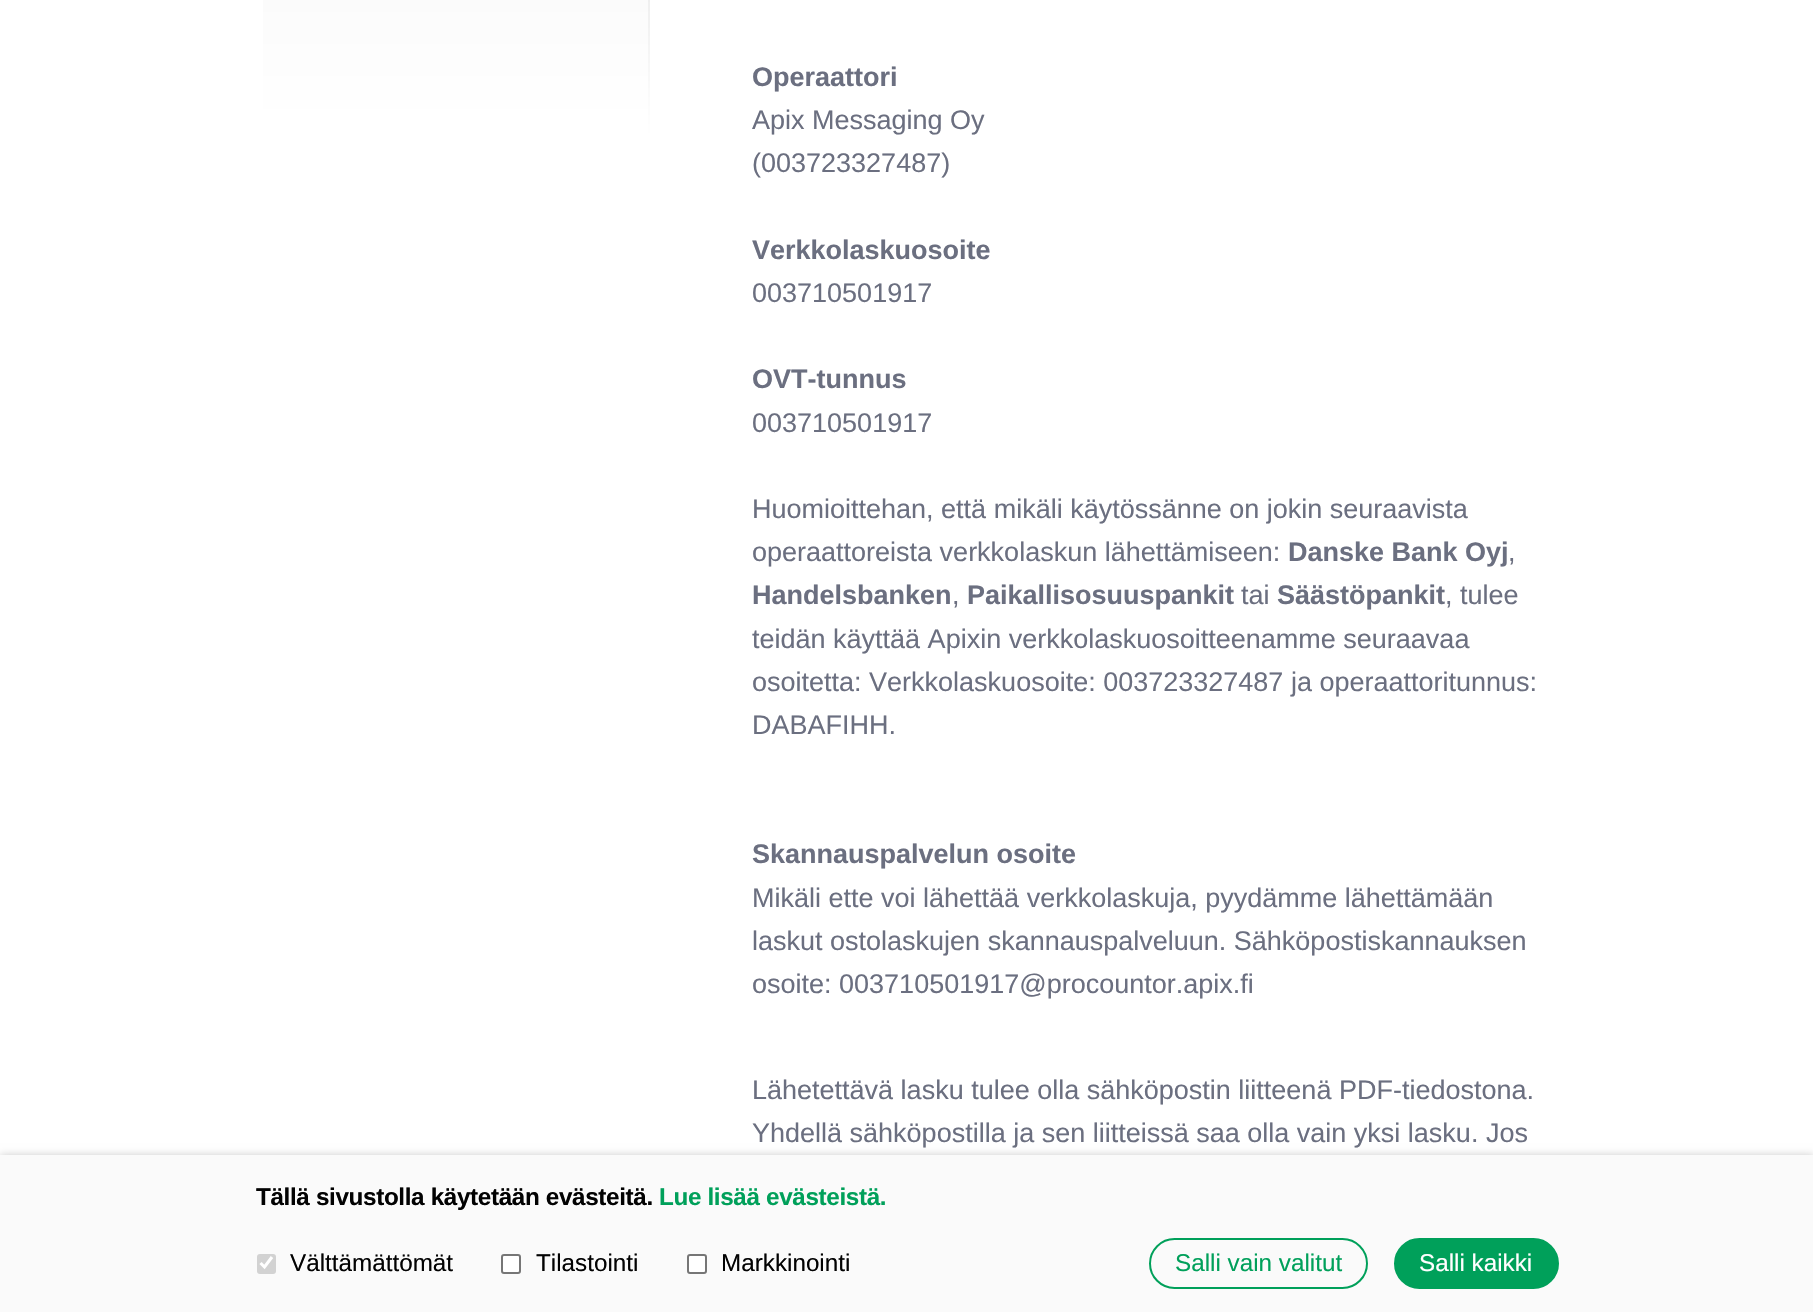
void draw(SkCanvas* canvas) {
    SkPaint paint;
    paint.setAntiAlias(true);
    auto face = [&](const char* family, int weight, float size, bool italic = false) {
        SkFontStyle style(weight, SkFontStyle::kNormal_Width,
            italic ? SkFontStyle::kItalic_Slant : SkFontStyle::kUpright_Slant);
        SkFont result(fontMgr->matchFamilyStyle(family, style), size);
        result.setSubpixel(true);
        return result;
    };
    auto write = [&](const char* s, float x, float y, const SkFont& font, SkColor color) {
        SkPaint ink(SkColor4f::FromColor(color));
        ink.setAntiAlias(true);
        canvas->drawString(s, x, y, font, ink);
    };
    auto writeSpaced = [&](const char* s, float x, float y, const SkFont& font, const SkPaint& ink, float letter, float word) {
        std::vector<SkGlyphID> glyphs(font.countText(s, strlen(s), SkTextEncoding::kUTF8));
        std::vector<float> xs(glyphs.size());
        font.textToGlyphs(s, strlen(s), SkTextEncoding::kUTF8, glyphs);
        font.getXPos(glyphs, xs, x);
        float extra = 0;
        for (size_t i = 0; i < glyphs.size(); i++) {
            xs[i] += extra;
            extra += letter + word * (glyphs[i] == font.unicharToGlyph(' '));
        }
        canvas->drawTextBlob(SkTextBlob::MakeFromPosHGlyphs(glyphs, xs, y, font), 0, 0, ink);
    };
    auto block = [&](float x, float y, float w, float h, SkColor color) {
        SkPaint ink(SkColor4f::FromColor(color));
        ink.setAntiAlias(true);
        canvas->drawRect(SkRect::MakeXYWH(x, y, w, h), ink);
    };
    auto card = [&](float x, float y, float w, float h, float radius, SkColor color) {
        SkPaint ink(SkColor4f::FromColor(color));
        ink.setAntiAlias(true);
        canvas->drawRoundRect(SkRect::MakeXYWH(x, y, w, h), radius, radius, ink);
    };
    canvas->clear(SK_ColorWHITE);
    block(263, 0, 385, 140, SkColorSetRGB(249, 249, 249));
    block(648, 0, 2, 141, SkColorSetRGB(230, 230, 230));
    {
        const SkColor colors[] = {SkColorSetARGB(0, 255, 255, 255), SK_ColorWHITE};
        const float stops[] = {0, 1};
        const SkPoint ends[] = {{456, -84}, {456, 141}};
        paint.setShader(SkGradientShader::MakeLinear(ends, colors, stops, 2, SkTileMode::kClamp));
        paint.setAlpha(255);
    }
    canvas->drawRect(SkRect::MakeXYWH(263, 0, 387, 141), paint);
    auto kFont1 = face("Liberation Sans", 700, 27);
    write("Operaattori", 752, 86, kFont1, SkColorSetRGB(107, 111, 128));
    auto kFont2 = face("Liberation Sans", 400, 27);
    write("Apix Messaging Oy", 752, 129, kFont2, SkColorSetRGB(107, 111, 128));
    write("(003723327487)", 752, 172, kFont2, SkColorSetRGB(107, 111, 128));
    write("Verkkolaskuosoite", 752, 259, kFont1, SkColorSetRGB(107, 111, 128));
    write("003710501917", 752, 302, kFont2, SkColorSetRGB(107, 111, 128));
    write("OVT-tunnus", 752, 388, kFont1, SkColorSetRGB(107, 111, 128));
    write("003710501917", 752, 432, kFont2, SkColorSetRGB(107, 111, 128));
    write("Huomioittehan, että mikäli käytössänne on jokin seuraavista", 752, 518, kFont2, SkColorSetRGB(107, 111, 128));
    write("operaattoreista verkkolaskun lähettämiseen:", 752, 561, kFont2, SkColorSetRGB(107, 111, 128));
    write("Danske Bank Oyj", 1288, 561, kFont1, SkColorSetRGB(107, 111, 128));
    write(",", 1508, 561, kFont2, SkColorSetRGB(107, 111, 128));
    write("Handelsbanken", 752, 604, kFont1, SkColorSetRGB(107, 111, 128));
    write(",", 952, 604, kFont2, SkColorSetRGB(107, 111, 128));
    write("Paikallisosuuspankit", 967, 604, kFont1, SkColorSetRGB(107, 111, 128));
    write("tai", 1241, 604, kFont2, SkColorSetRGB(107, 111, 128));
    write("Säästöpankit", 1277, 604, kFont1, SkColorSetRGB(107, 111, 128));
    write(", tulee", 1445, 604, kFont2, SkColorSetRGB(107, 111, 128));
    write("teidän käyttää Apixin verkkolaskuosoitteenamme seuraavaa", 752, 648, kFont2, SkColorSetRGB(107, 111, 128));
    write("osoitetta: Verkkolaskuosoite: 003723327487 ja operaattoritunnus:", 752, 691, kFont2, SkColorSetRGB(107, 111, 128));
    write("DABAFIHH.", 752, 734, kFont2, SkColorSetRGB(107, 111, 128));
    write("Skannauspalvelun osoite", 752, 863, kFont1, SkColorSetRGB(107, 111, 128));
    write("Mikäli ette voi lähettää verkkolaskuja, pyydämme lähettämään", 752, 907, kFont2, SkColorSetRGB(107, 111, 128));
    write("laskut ostolaskujen skannauspalveluun. Sähköpostiskannauksen", 752, 950, kFont2, SkColorSetRGB(107, 111, 128));
    write("osoite: 003710501917@procountor.apix.fi", 752, 993, kFont2, SkColorSetRGB(107, 111, 128));
    write("Lähetettävä lasku tulee olla sähköpostin liitteenä PDF-tiedostona.", 752, 1099, kFont2, SkColorSetRGB(107, 111, 128));
    write("Yhdellä sähköpostilla ja sen liitteissä saa olla vain yksi lasku. Jos", 752, 1142, kFont2, SkColorSetRGB(107, 111, 128));
    paint.setShader(nullptr);
    paint.setColor(SkColorSetARGB(51, 0, 0, 0));
    paint.setMaskFilter(SkMaskFilter::MakeBlur(kNormal_SkBlurStyle, 4));
    canvas->drawRect(SkRect::MakeXYWH(0, 1155, 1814, 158), paint);
    paint.setMaskFilter(nullptr);
    block(0, 1155, 1813, 157, SkColorSetRGB(250, 250, 250));
    auto kFont3 = face("Liberation Sans", 700, 24.25f);
    paint.setColor(SkColorSetRGB(2, 2, 2));
    writeSpaced("Tällä sivustolla käytetään evästeitä.", 256, 1205, kFont3, paint, -0.35f, 0);
    paint.setColor(SkColorSetRGB(0, 160, 90));
    writeSpaced("Lue lisää evästeistä.", 659, 1205, kFont3, paint, -0.35f, 0);
    card(257, 1254, 19, 20, 3, SkColorSetRGB(210, 210, 210));
    paint.setStyle(SkPaint::kStroke_Style);
    paint.setStrokeWidth(3.1f);
    paint.setColor(SK_ColorWHITE);
    canvas->drawPath(SkPathBuilder().moveTo(260.5f, 1263).lineTo(264.5f, 1267).lineTo(272, 1257).detach(), paint);
    auto kFont4 = face("Liberation Sans", 400, 24.25f);
    write("Välttämättömät", 290, 1271, kFont4, SkColorSetRGB(2, 2, 2));
    paint.setStyle(SkPaint::kFill_Style);
    canvas->drawRoundRect(SkRect::MakeXYWH(502, 1255, 18, 18), 2, 2, paint);
    paint.setStyle(SkPaint::kStroke_Style);
    paint.setStrokeWidth(2);
    paint.setColor(SkColorSetRGB(118, 118, 118));
    canvas->drawRoundRect(SkRect::MakeXYWH(502, 1255, 18, 18), 2, 2, paint);
    write("Tilastointi", 536, 1271, kFont4, SkColorSetRGB(2, 2, 2));
    paint.setStyle(SkPaint::kFill_Style);
    paint.setColor(SK_ColorWHITE);
    canvas->drawRoundRect(SkRect::MakeXYWH(688, 1255, 18, 18), 2, 2, paint);
    paint.setStyle(SkPaint::kStroke_Style);
    paint.setColor(SkColorSetRGB(118, 118, 118));
    canvas->drawRoundRect(SkRect::MakeXYWH(688, 1255, 18, 18), 2, 2, paint);
    write("Markkinointi", 721, 1271, kFont4, SkColorSetRGB(2, 2, 2));
    paint.setColor(SkColorSetRGB(0, 160, 90));
    canvas->drawRoundRect(SkRect::MakeXYWH(1150, 1239, 217, 49), 24.5f, 24.5f, paint);
    write("Salli vain valitut", 1175, 1271, kFont4, SkColorSetRGB(0, 160, 90));
    paint.setStyle(SkPaint::kFill_Style);
    canvas->drawRoundRect(SkRect::MakeXYWH(1395, 1239, 163, 49), 24.5f, 24.5f, paint);
    paint.setStyle(SkPaint::kStroke_Style);
    canvas->drawRoundRect(SkRect::MakeXYWH(1395, 1239, 163, 49), 24.5f, 24.5f, paint);
    write("Salli kaikki", 1419, 1271, kFont4, SK_ColorWHITE);
}
